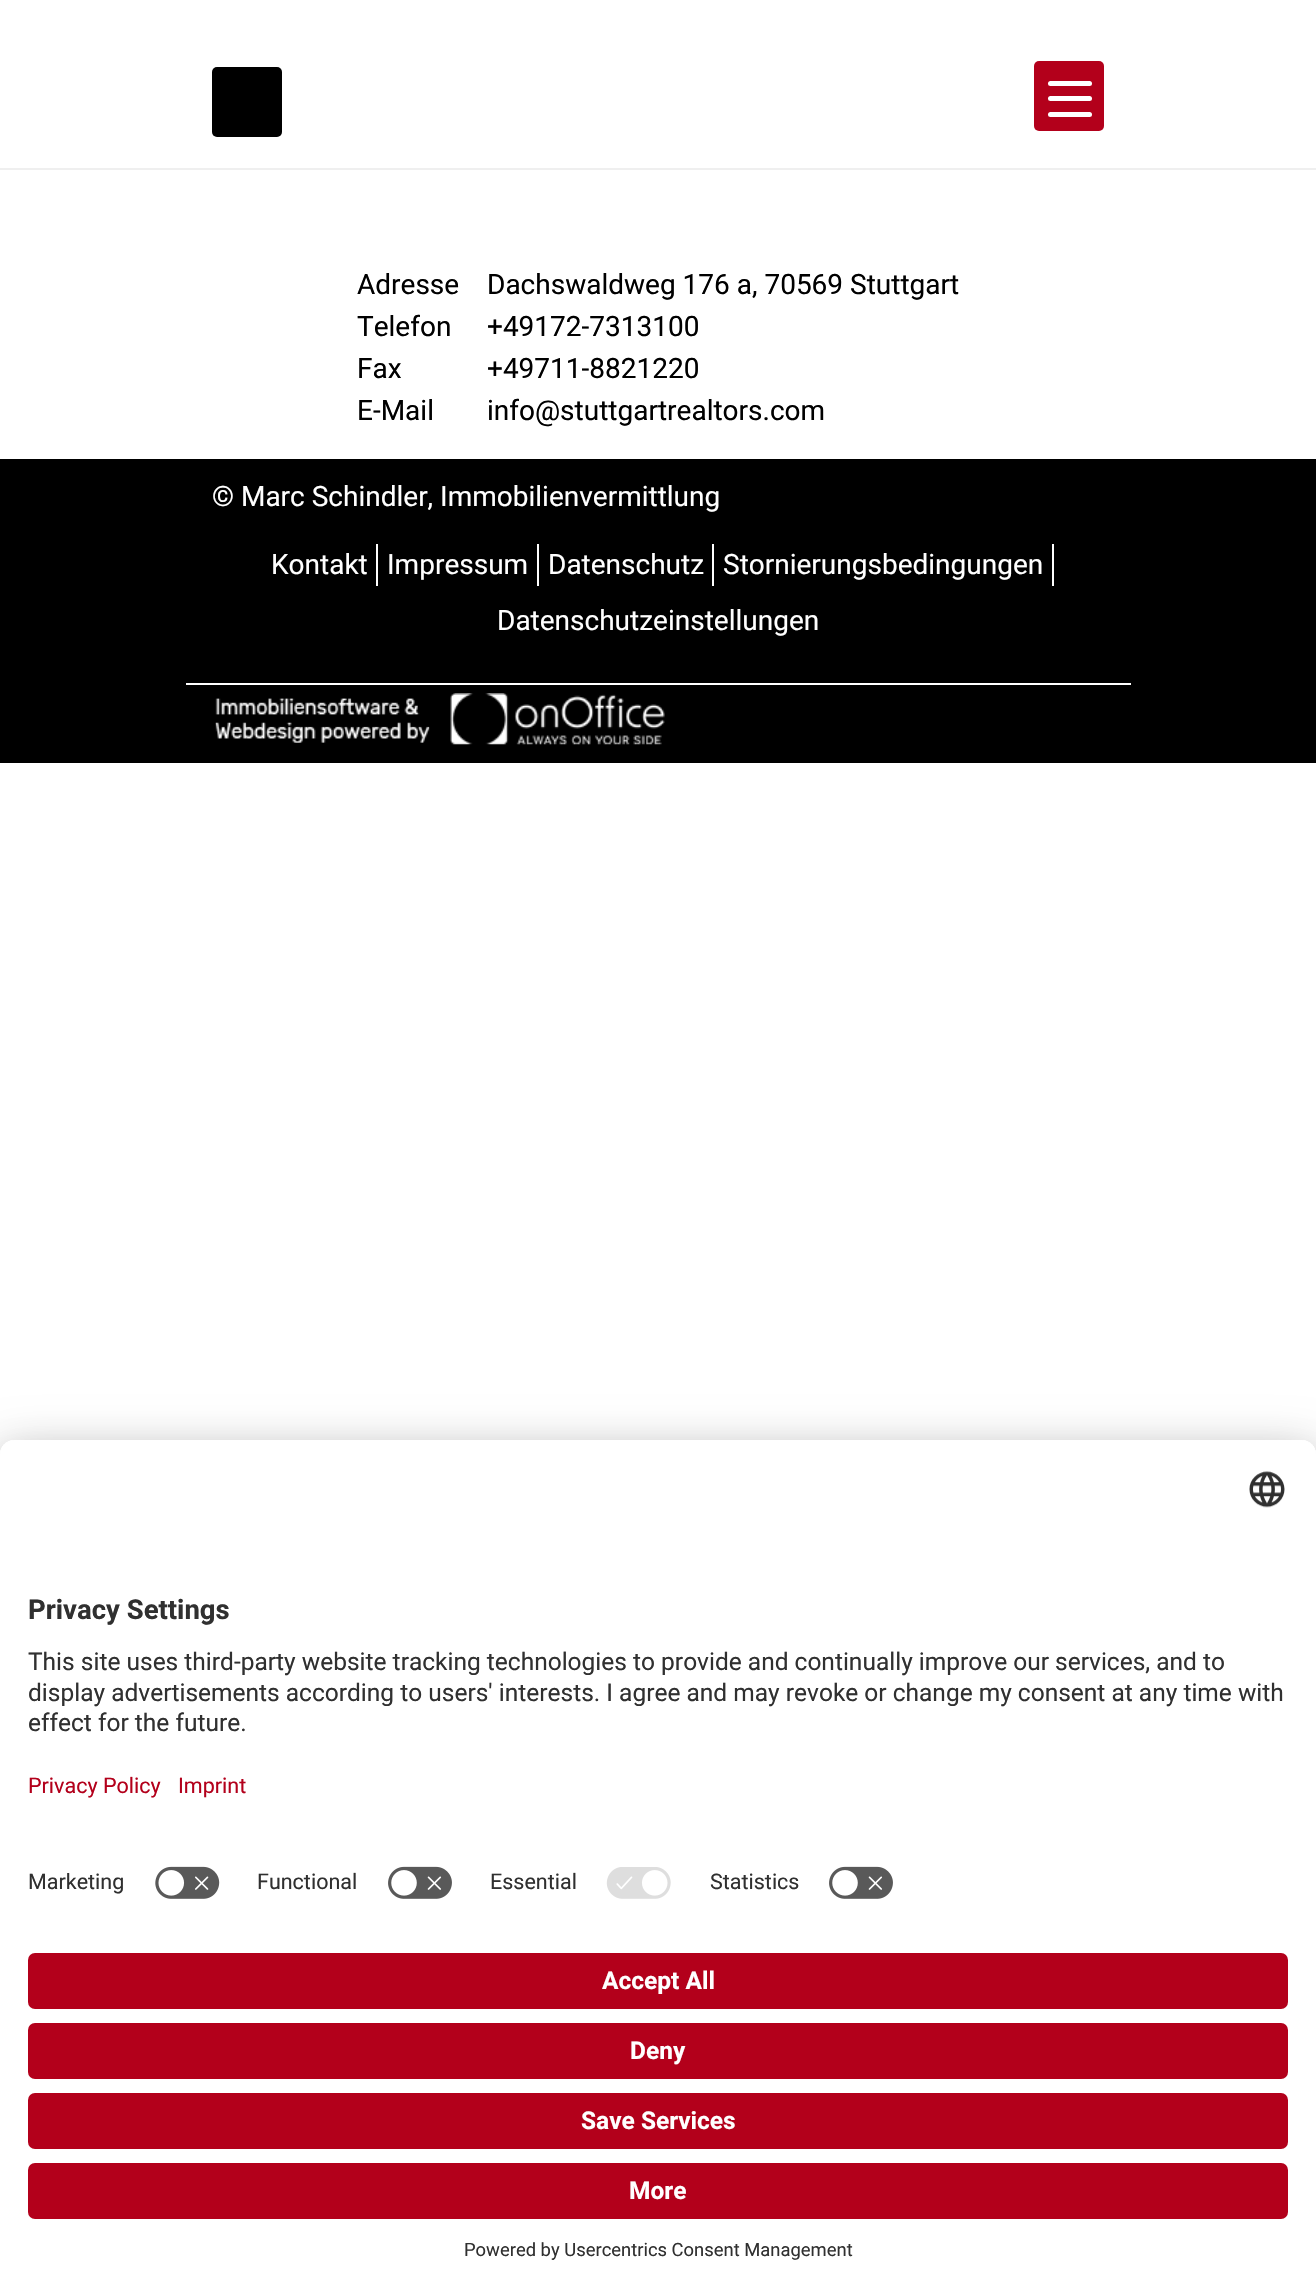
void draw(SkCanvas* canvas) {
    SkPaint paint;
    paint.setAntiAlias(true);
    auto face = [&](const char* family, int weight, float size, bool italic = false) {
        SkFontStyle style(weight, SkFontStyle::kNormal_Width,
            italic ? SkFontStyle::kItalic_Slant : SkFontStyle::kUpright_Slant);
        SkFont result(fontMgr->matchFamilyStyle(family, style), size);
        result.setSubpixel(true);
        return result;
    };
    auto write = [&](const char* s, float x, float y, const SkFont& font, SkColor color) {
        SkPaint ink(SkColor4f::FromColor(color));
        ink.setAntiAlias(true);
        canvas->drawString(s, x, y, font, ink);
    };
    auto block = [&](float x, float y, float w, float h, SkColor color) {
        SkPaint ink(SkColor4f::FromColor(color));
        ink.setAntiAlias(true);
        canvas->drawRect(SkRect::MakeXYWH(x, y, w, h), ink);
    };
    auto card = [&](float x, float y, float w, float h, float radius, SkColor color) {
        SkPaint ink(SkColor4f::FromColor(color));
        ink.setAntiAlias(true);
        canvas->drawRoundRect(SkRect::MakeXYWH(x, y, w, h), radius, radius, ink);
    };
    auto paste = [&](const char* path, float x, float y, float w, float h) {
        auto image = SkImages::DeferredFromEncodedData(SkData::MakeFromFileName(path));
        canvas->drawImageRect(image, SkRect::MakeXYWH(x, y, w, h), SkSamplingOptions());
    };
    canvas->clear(SK_ColorWHITE);
    block(0, 168, 1316, 2, SkColorSetRGB(239, 239, 239));
    card(212, 67, 70, 70, 5, SK_ColorBLACK);
    card(1034, 61, 70, 70, 5, SkColorSetRGB(179, 0, 27));
    card(1048, 81, 44, 5, 2.5f, SK_ColorWHITE);
    card(1048, 96, 44, 5, 2.5f, SK_ColorWHITE);
    card(1048, 112, 44, 5, 2.5f, SK_ColorWHITE);
    auto kFont1 = face("Roboto", 400, 28);
    write("Adresse", 357, 294, kFont1, SK_ColorBLACK);
    write("Dachswaldweg 176 a, 70569 Stuttgart", 487, 294, kFont1, SK_ColorBLACK);
    write("Telefon", 357, 336, kFont1, SK_ColorBLACK);
    write("+49172-7313100", 487, 336, kFont1, SK_ColorBLACK);
    write("Fax", 357, 378, kFont1, SK_ColorBLACK);
    write("+49711-8821220", 487, 378, kFont1, SK_ColorBLACK);
    write("E-Mail", 357, 420, kFont1, SK_ColorBLACK);
    write("info@stuttgartrealtors.com", 487, 420, kFont1, SK_ColorBLACK);
    block(0, 459, 1316, 304, SK_ColorBLACK);
    write("© Marc Schindler, Immobilienvermittlung", 212, 506, kFont1, SK_ColorWHITE);
    block(186, 683, 945, 2, SK_ColorWHITE);
    block(376, 544, 2, 42, SK_ColorWHITE);
    write("Kontakt", 271, 574, kFont1, SK_ColorWHITE);
    block(537, 544, 2, 42, SK_ColorWHITE);
    write("Impressum", 387, 574, kFont1, SK_ColorWHITE);
    block(712, 544, 2, 42, SK_ColorWHITE);
    write("Datenschutz", 548, 574, kFont1, SK_ColorWHITE);
    block(1052, 544, 2, 42, SK_ColorWHITE);
    write("Stornierungsbedingungen", 723, 574, kFont1, SK_ColorWHITE);
    write("Datenschutzeinstellungen", 497, 630, kFont1, SK_ColorWHITE);
    paste("pic1.png", 215, 693, 450, 52);
    paint.setColor(SkColorSetARGB(77, 0, 0, 0));
    paint.setMaskFilter(SkMaskFilter::MakeBlur(kNormal_SkBlurStyle, 24.5f));
    canvas->drawRoundRect(SkRect::MakeXYWH(0, 1475, 1316, 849), 14, 14, paint);
    paint.setMaskFilter(nullptr);
    paint.setColor(SkColorSetARGB(56, 0, 0, 0));
    paint.setMaskFilter(SkMaskFilter::MakeBlur(kNormal_SkBlurStyle, 23));
    canvas->drawRoundRect(SkRect::MakeXYWH(0, 1449, 1316, 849), 14, 14, paint);
    paint.setMaskFilter(nullptr);
    paint.setColor(SK_ColorWHITE);
    canvas->drawPath(SkPathBuilder().moveTo(14, 1440).lineTo(1302, 1440).cubicTo(1309.5f, 1440, 1316, 1446.5f, 1316, 1454).lineTo(1316, 2289).lineTo(0, 2289).lineTo(0, 1454).cubicTo(0, 1446.5f, 6.5f, 1440, 14, 1440).close().detach(), paint);
    canvas->drawPath(SkPathBuilder().moveTo(14, 1440).lineTo(1302, 1440).cubicTo(1309.5f, 1440, 1316, 1446.5f, 1316, 1454).lineTo(1316, 1932).lineTo(0, 1932).lineTo(0, 1454).cubicTo(0, 1446.5f, 6.5f, 1440, 14, 1440).close().detach(), paint);
    canvas->drawPath(SkPathBuilder().moveTo(14, 1440).lineTo(1302, 1440).cubicTo(1309.5f, 1440, 1316, 1446.5f, 1316, 1454).lineTo(1316, 1855).lineTo(0, 1855).lineTo(0, 1454).cubicTo(0, 1446.5f, 6.5f, 1440, 14, 1440).close().detach(), paint);
    paste("pic2.png", 1249, 1471, 36, 37);
    auto kFont2 = face("Roboto", 700, 27.5f);
    write("Privacy Settings", 28, 1619, kFont2, SkColorSetRGB(48, 48, 48));
    auto kFont3 = face("Roboto", 400, 24.5f);
    write("This site uses third-party website tracking technologies to provide and continually improve our services, and to", 28, 1670, kFont3, SkColorSetRGB(48, 48, 48));
    write("display advertisements according to users' interests. I agree and may revoke or change my consent at any time with", 28, 1701, kFont3, SkColorSetRGB(48, 48, 48));
    write("effect for the future.", 28, 1731, kFont3, SkColorSetRGB(48, 48, 48));
    auto kFont4 = face("Roboto", 400, 21.5f);
    write("Privacy Policy", 28, 1793, kFont4, SkColorSetRGB(179, 0, 27));
    write("Imprint", 178, 1793, kFont4, SkColorSetRGB(179, 0, 27));
    write("Marketing", 28, 1889, kFont4, SkColorSetRGB(48, 48, 48));
    paste("pic3.png", 155, 1866, 65, 33);
    write("Functional", 257, 1889, kFont4, SkColorSetRGB(48, 48, 48));
    paste("pic4.png", 388, 1866, 64, 33);
    write("Essential", 490, 1889, kFont4, SkColorSetRGB(48, 48, 48));
    paste("pic5.png", 606, 1867, 65, 32);
    write("Statistics", 710, 1889, kFont4, SkColorSetRGB(48, 48, 48));
    paste("pic4.png", 829, 1866, 64, 33);
    card(28, 1953, 1260, 56, 7, SkColorSetRGB(179, 0, 27));
    auto kFont5 = face("Roboto", 700, 24.5f);
    write("Accept All", 602, 1989, kFont5, SK_ColorWHITE);
    card(28, 2023, 1260, 56, 7, SkColorSetRGB(179, 0, 27));
    write("Deny", 630, 2059, kFont5, SK_ColorWHITE);
    card(28, 2093, 1260, 56, 7, SkColorSetRGB(179, 0, 27));
    write("Save Services", 581, 2129, kFont5, SK_ColorWHITE);
    card(28, 2163, 1260, 56, 7, SkColorSetRGB(179, 0, 27));
    write("More", 629, 2199, kFont5, SK_ColorWHITE);
    auto kFont6 = face("Roboto", 400, 18.4f);
    write("Powered by Usercentrics Consent Management", 464, 2256, kFont6, SkColorSetRGB(48, 48, 48));
}
